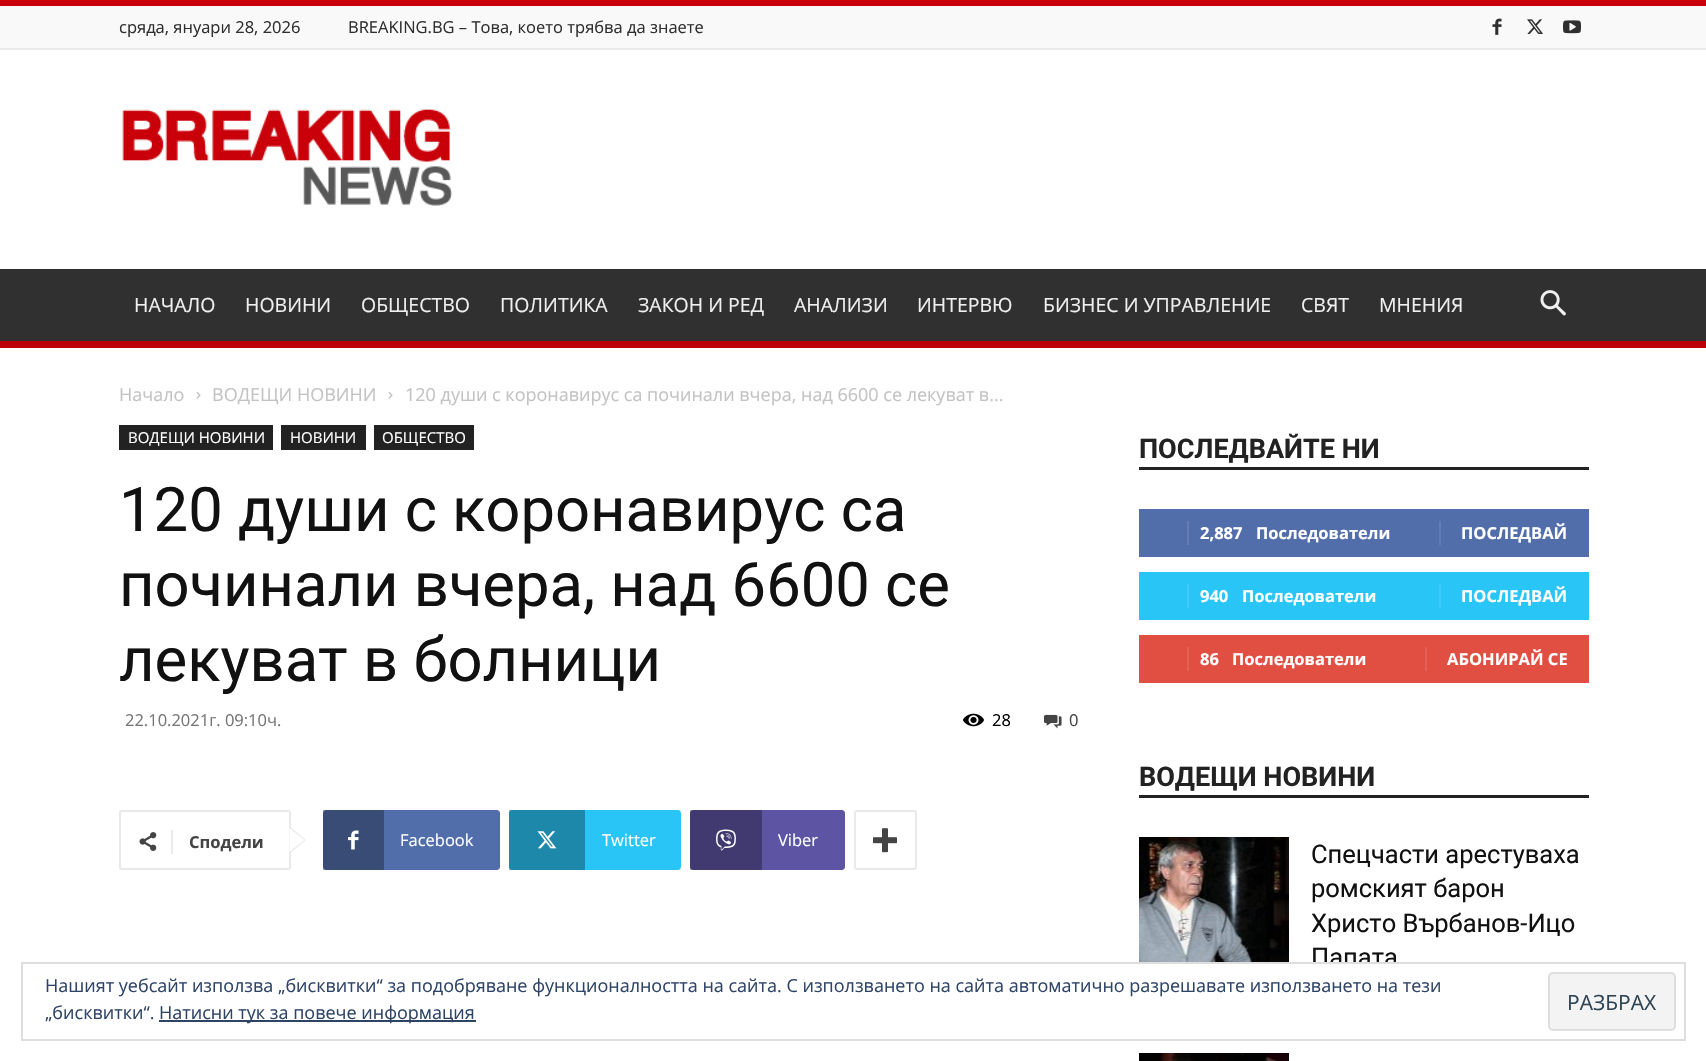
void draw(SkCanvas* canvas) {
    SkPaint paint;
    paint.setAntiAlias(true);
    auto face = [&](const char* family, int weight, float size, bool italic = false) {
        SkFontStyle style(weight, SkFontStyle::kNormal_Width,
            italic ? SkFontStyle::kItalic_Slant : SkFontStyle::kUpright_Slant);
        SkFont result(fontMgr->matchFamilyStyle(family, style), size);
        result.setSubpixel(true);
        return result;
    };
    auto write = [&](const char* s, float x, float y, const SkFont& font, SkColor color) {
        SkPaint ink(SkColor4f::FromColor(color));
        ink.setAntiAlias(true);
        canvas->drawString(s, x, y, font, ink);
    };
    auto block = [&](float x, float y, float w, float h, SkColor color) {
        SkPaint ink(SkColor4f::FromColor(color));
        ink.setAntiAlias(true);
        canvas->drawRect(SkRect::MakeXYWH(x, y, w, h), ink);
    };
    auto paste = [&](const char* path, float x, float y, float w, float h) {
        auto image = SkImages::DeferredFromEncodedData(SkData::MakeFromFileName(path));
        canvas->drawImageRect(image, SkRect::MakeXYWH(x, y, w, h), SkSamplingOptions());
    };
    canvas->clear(SK_ColorWHITE);
    block(0, 6, 1706, 42, SkColorSetRGB(249, 249, 249));
    block(0, 0, 1706, 6, SkColorSetRGB(201, 0, 9));
    block(0, 48, 1706, 2, SkColorSetRGB(233, 233, 233));
    auto kFont1 = face("Open Sans", 400, 16.5f);
    write("сряда, януари 28, 2026", 119, 33, kFont1, SkColorSetRGB(47, 47, 47));
    write("BREAKING.BG – Това, което трябва да знаете", 348, 33, kFont1, SkColorSetRGB(47, 47, 47));
    paste("pic1.png", 1492, 18, 10, 17);
    paste("pic2.png", 1527, 19, 16, 15);
    paste("pic3.png", 1563, 20, 18, 14);
    paste("pic4.png", 122, 109, 331, 97);
    block(0, 269, 1706, 72, SkColorSetRGB(48, 48, 48));
    auto kFont2 = face("Open Sans", 400, 19.5f);
    write("НАЧАЛО", 134, 312, kFont2, SkColorSetRGB(239, 239, 239));
    write("НОВИНИ", 245, 312, kFont2, SkColorSetRGB(239, 239, 239));
    write("ОБЩЕСТВО", 361, 312, kFont2, SkColorSetRGB(239, 239, 239));
    write("ПОЛИТИКА", 500, 312, kFont2, SkColorSetRGB(239, 239, 239));
    write("ЗАКОН И РЕД", 638, 312, kFont2, SkColorSetRGB(239, 239, 239));
    write("АНАЛИЗИ", 794, 312, kFont2, SkColorSetRGB(239, 239, 239));
    write("ИНТЕРВЮ", 917, 312, kFont2, SkColorSetRGB(239, 239, 239));
    write("БИЗНЕС И УПРАВЛЕНИЕ", 1043, 312, kFont2, SkColorSetRGB(239, 239, 239));
    write("СВЯТ", 1301, 312, kFont2, SkColorSetRGB(239, 239, 239));
    write("МНЕНИЯ", 1379, 312, kFont2, SkColorSetRGB(239, 239, 239));
    paste("pic5.png", 1540, 290, 26, 26);
    block(0, 341, 1706, 7, SkColorSetRGB(201, 0, 9));
    paste("pic6.png", 0, 341, 1706, 7);
    auto kFont3 = face("Open Sans", 400, 18);
    write("Начало", 119, 401, kFont3, SkColorSetRGB(195, 195, 195));
    paste("pic7.png", 196, 392, 5, 7);
    write("ВОДЕЩИ НОВИНИ", 212, 401, kFont3, SkColorSetRGB(195, 195, 195));
    paste("pic7.png", 388, 392, 5, 7);
    write("120 души с коронавирус са починали вчера, над 6600 се лекуват в...", 405, 401, kFont3, SkColorSetRGB(195, 195, 195));
    block(119, 425, 154, 25, SkColorSetRGB(34, 34, 34));
    auto kFont4 = face("Open Sans", 400, 15);
    write("ВОДЕЩИ НОВИНИ", 128, 443, kFont4, SK_ColorWHITE);
    block(281, 425, 85, 25, SkColorSetRGB(34, 34, 34));
    write("НОВИНИ", 290, 443, kFont4, SK_ColorWHITE);
    block(374, 425, 100, 25, SkColorSetRGB(34, 34, 34));
    write("ОБЩЕСТВО", 382, 443, kFont4, SK_ColorWHITE);
    auto kFont5 = face("Roboto", 400, 61.5f);
    write("120 души с коронавирус са", 119, 531, kFont5, SkColorSetRGB(17, 17, 17));
    write("починали вчера, над 6600 се", 119, 606, kFont5, SkColorSetRGB(17, 17, 17));
    write("лекуват в болници", 119, 681, kFont5, SkColorSetRGB(17, 17, 17));
    write("22.10.2021г. 09:10ч.", 125, 726, kFont1, SkColorSetRGB(118, 118, 118));
    paste("pic8.png", 963, 713, 21, 14);
    write("28", 992, 726, kFont1, SK_ColorBLACK);
    paste("pic9.png", 1044, 714, 18, 15);
    write("0", 1069, 726, kFont1, SkColorSetRGB(68, 68, 68));
    paint.setStyle(SkPaint::kStroke_Style);
    paint.setStrokeWidth(2);
    paint.setColor(SkColorSetRGB(233, 233, 233));
    canvas->drawRoundRect(SkRect::MakeXYWH(120, 811, 170, 58), 2, 2, paint);
    paint.setStyle(SkPaint::kFill_Style);
    canvas->drawPath(SkPathBuilder().moveTo(289.5f, 853.5f).lineTo(289.5f, 826.5f).lineTo(306, 840).close().detach(), paint);
    paste("pic10.png", 139, 832, 18, 19);
    block(171, 830, 2, 24, SkColorSetRGB(235, 235, 235));
    auto kFont6 = face("Open Sans", 700, 16.5f);
    write("Сподели", 189, 848, kFont6, SkColorSetRGB(68, 68, 68));
    paint.setColor(SK_ColorWHITE);
    canvas->drawPath(SkPathBuilder().moveTo(289.5f, 852).lineTo(289.5f, 828).lineTo(304.5f, 840).close().detach(), paint);
    paint.setColor(SkColorSetRGB(81, 110, 171));
    canvas->drawPath(SkPathBuilder().moveTo(375, 810).lineTo(497, 810).cubicTo(498.5f, 810, 500, 811.5f, 500, 813).lineTo(500, 867).cubicTo(500, 868.5f, 498.5f, 870, 497, 870).lineTo(375, 870).close().detach(), paint);
    canvas->drawPath(SkPathBuilder().moveTo(326, 810).lineTo(384, 810).lineTo(384, 870).lineTo(326, 870).cubicTo(324.5f, 870, 323, 868.5f, 323, 867).lineTo(323, 813).cubicTo(323, 811.5f, 324.5f, 810, 326, 810).close().detach(), paint);
    block(323, 810, 61, 60, SkColorSetARGB(79, 0, 0, 0));
    paste("pic11.png", 348, 830, 11, 20);
    write("Facebook", 400, 846, kFont1, SK_ColorWHITE);
    paint.setColor(SkColorSetRGB(41, 197, 246));
    canvas->drawPath(SkPathBuilder().moveTo(576, 810).lineTo(678, 810).cubicTo(679.5f, 810, 681, 811.5f, 681, 813).lineTo(681, 867).cubicTo(681, 868.5f, 679.5f, 870, 678, 870).lineTo(576, 870).close().detach(), paint);
    canvas->drawPath(SkPathBuilder().moveTo(512, 810).lineTo(585, 810).lineTo(585, 870).lineTo(512, 870).cubicTo(510.5f, 870, 509, 868.5f, 509, 867).lineTo(509, 813).cubicTo(509, 811.5f, 510.5f, 810, 512, 810).close().detach(), paint);
    block(509, 810, 76, 60, SkColorSetARGB(79, 0, 0, 0));
    paste("pic12.png", 537, 831, 20, 18);
    write("Twitter", 602, 846, kFont1, SK_ColorWHITE);
    paint.setColor(SkColorSetRGB(93, 84, 164));
    canvas->drawPath(SkPathBuilder().moveTo(753, 810).lineTo(842, 810).cubicTo(843.5f, 810, 845, 811.5f, 845, 813).lineTo(845, 867).cubicTo(845, 868.5f, 843.5f, 870, 842, 870).lineTo(753, 870).close().detach(), paint);
    canvas->drawPath(SkPathBuilder().moveTo(693, 810).lineTo(762, 810).lineTo(762, 870).lineTo(693, 870).cubicTo(691.5f, 870, 690, 868.5f, 690, 867).lineTo(690, 813).cubicTo(690, 811.5f, 691.5f, 810, 693, 810).close().detach(), paint);
    block(690, 810, 72, 60, SkColorSetARGB(79, 0, 0, 0));
    paste("pic13.png", 716, 829, 20, 22);
    write("Viber", 778, 846, kFont1, SK_ColorWHITE);
    paint.setStyle(SkPaint::kStroke_Style);
    paint.setColor(SkColorSetRGB(233, 233, 233));
    canvas->drawRoundRect(SkRect::MakeXYWH(855, 811, 61, 58), 2, 2, paint);
    paste("pic14.png", 873, 828, 24, 25);
    block(1139, 467, 450, 3, SkColorSetRGB(34, 34, 34));
    auto kFont7 = face("Roboto", 700, 27);
    write("ПОСЛЕДВАЙТЕ НИ", 1139, 458, kFont7, SkColorSetRGB(34, 34, 34));
    block(1139, 509, 450, 48, SkColorSetRGB(81, 110, 171));
    block(1187, 521, 2, 24, SkColorSetRGB(98, 125, 179));
    write("2,887", 1200, 539, kFont6, SK_ColorWHITE);
    write("Последователи", 1256, 539, kFont6, SK_ColorWHITE);
    block(1439, 521, 2, 24, SkColorSetRGB(98, 125, 179));
    write("ПОСЛЕДВАЙ", 1461, 539, kFont6, SK_ColorWHITE);
    block(1139, 572, 450, 48, SkColorSetRGB(41, 197, 246));
    block(1187, 584, 2, 24, SkColorSetRGB(62, 203, 247));
    write("940", 1200, 602, kFont6, SK_ColorWHITE);
    write("Последователи", 1242, 602, kFont6, SK_ColorWHITE);
    block(1439, 584, 2, 24, SkColorSetRGB(62, 203, 247));
    write("ПОСЛЕДВАЙ", 1461, 602, kFont6, SK_ColorWHITE);
    block(1139, 635, 450, 48, SkColorSetRGB(225, 78, 66));
    block(1187, 647, 2, 24, SkColorSetRGB(228, 96, 85));
    write("86", 1200, 665, kFont6, SK_ColorWHITE);
    write("Последователи", 1232, 665, kFont6, SK_ColorWHITE);
    block(1425, 647, 2, 24, SkColorSetRGB(228, 96, 85));
    write("АБОНИРАЙ СЕ", 1447, 665, kFont6, SK_ColorWHITE);
    block(1139, 795, 450, 3, SkColorSetRGB(34, 34, 34));
    write("ВОДЕЩИ НОВИНИ", 1139, 786, kFont7, SkColorSetRGB(34, 34, 34));
    paste("pic15.png", 1139, 837, 150, 125);
    auto kFont8 = face("Roboto", 400, 25.5f);
    write("Спецчасти арестуваха", 1311, 863, kFont8, SkColorSetRGB(17, 17, 17));
    write("ромският барон", 1311, 897, kFont8, SkColorSetRGB(17, 17, 17));
    write("Христо Върбанов-Ицо", 1311, 932, kFont8, SkColorSetRGB(17, 17, 17));
    write("Папата", 1311, 966, kFont8, SkColorSetRGB(17, 17, 17));
    paste("pic16.png", 1139, 1053, 150, 8);
    block(1313, 964, 84, 3, SK_ColorWHITE);
    paint.setColor(SkColorSetRGB(222, 222, 222));
    canvas->drawRect(SkRect::MakeXYWH(22, 963, 1663, 77), paint);
    write("Нашият уебсайт използва „бисквитки“ за подобряване функционалността на сайта. С използването на сайта автоматично разрешавате използването на тези", 45, 992, kFont3, SkColorSetRGB(46, 68, 103));
    paint.setStyle(SkPaint::kFill_Style);
    paint.setColor(SkColorSetRGB(243, 243, 243));
    canvas->drawRoundRect(SkRect::MakeXYWH(1549, 973, 126, 57), 4, 4, paint);
    paint.setStyle(SkPaint::kStroke_Style);
    paint.setColor(SkColorSetRGB(222, 222, 222));
    canvas->drawRoundRect(SkRect::MakeXYWH(1549, 973, 126, 57), 4, 4, paint);
    auto kFont9 = face("Open Sans", 400, 21);
    write("РАЗБРАХ", 1567, 1010, kFont9, SkColorSetRGB(46, 68, 83));
    write("„бисквитки“.", 45, 1019, kFont3, SkColorSetRGB(46, 68, 103));
    block(159, 1020, 317, 2, SkColorSetRGB(46, 68, 103));
    write("Натисни тук за повече информация", 159, 1019, kFont3, SkColorSetRGB(46, 68, 103));
}
